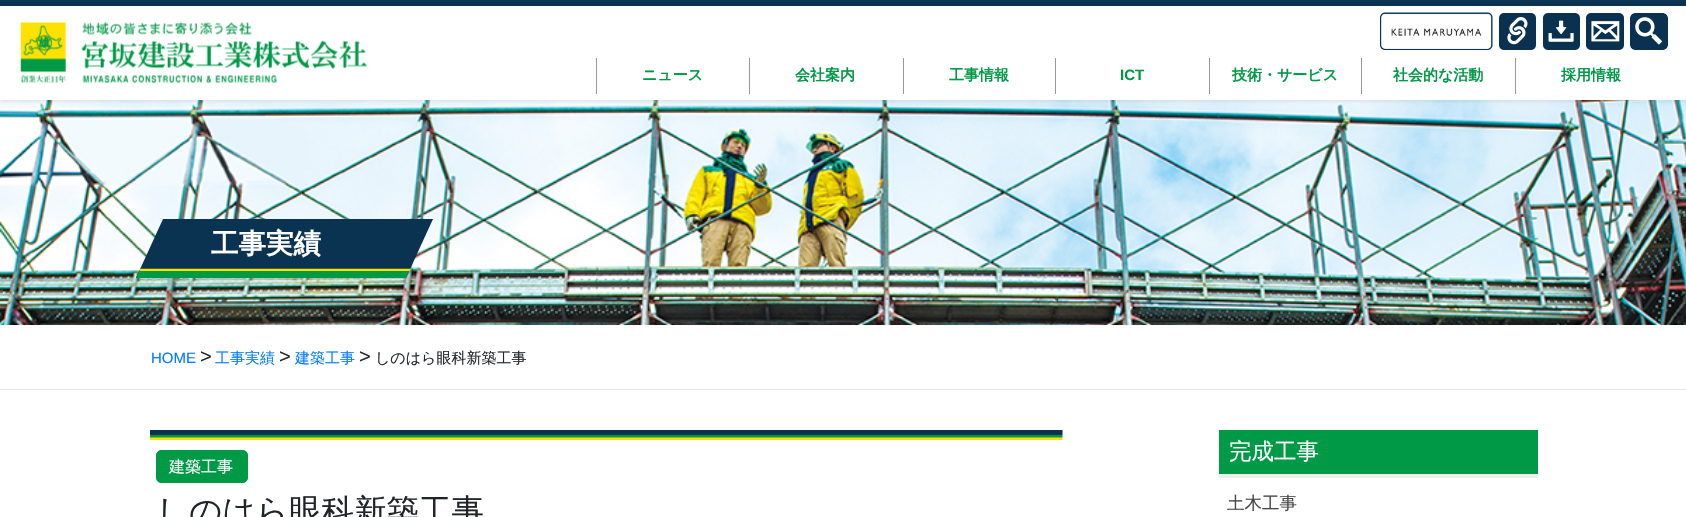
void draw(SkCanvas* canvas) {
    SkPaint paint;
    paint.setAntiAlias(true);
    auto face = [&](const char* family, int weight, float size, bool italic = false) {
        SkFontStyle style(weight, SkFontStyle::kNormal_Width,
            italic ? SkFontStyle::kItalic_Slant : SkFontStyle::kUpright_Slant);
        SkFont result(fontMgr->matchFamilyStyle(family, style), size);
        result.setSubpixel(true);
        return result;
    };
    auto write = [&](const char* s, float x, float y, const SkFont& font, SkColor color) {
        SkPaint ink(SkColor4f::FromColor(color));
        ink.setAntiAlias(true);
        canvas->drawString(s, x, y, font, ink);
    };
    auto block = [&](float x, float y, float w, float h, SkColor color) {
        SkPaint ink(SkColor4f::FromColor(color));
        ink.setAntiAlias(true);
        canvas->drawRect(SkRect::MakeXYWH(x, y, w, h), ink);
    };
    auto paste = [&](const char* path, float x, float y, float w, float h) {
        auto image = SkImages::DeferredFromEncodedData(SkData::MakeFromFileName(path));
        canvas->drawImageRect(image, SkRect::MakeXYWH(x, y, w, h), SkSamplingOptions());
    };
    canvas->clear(SK_ColorWHITE);
    paste("pic7.png", 0, 100, 1686, 225);
    paint.setColor(SkColorSetARGB(26, 0, 0, 0));
    paint.setMaskFilter(SkMaskFilter::MakeBlur(kNormal_SkBlurStyle, 2));
    canvas->drawRect(SkRect::MakeXYWH(0, 1, 1686, 100), paint);
    paint.setMaskFilter(nullptr);
    block(0, 6, 1686, 94, SK_ColorWHITE);
    block(0, 0, 1686, 6, SkColorSetRGB(10, 50, 81));
    paste("pic1.png", 20, 22, 347, 61);
    paste("pic2.png", 1380, 12, 113, 38);
    paste("pic3.png", 1499, 13, 37, 37);
    paste("pic4.png", 1543, 13, 37, 37);
    paste("pic5.png", 1586, 13, 38, 37);
    paste("pic6.png", 1630, 13, 38, 37);
    block(596, 58, 1, 36, SkColorSetRGB(153, 153, 153));
    auto kFont1 = face("WenQuanYi Zen Hei", 700, 15);
    write("ニュース", 642, 80, kFont1, SkColorSetRGB(0, 153, 70));
    block(749, 58, 1, 36, SkColorSetRGB(153, 153, 153));
    write("会社案内", 795, 80, kFont1, SkColorSetRGB(0, 153, 70));
    block(903, 58, 1, 36, SkColorSetRGB(153, 153, 153));
    write("工事情報", 949, 80, kFont1, SkColorSetRGB(0, 153, 70));
    block(1055, 58, 1, 36, SkColorSetRGB(153, 153, 153));
    auto kFont2 = face("Liberation Sans", 700, 15);
    write("ICT", 1120, 80, kFont2, SkColorSetRGB(0, 153, 70));
    block(1209, 58, 1, 36, SkColorSetRGB(153, 153, 153));
    write("技術・サービス", 1232, 80, kFont1, SkColorSetRGB(0, 153, 70));
    block(1361, 58, 1, 36, SkColorSetRGB(153, 153, 153));
    write("社会的な活動", 1393, 80, kFont1, SkColorSetRGB(0, 153, 70));
    block(1515, 58, 1, 36, SkColorSetRGB(153, 153, 153));
    write("採用情報", 1561, 80, kFont1, SkColorSetRGB(0, 153, 70));
    paint.setColor(SkColorSetRGB(10, 50, 81));
    canvas->drawPath(SkPathBuilder().moveTo(163, 219).lineTo(433, 219).lineTo(406, 278).lineTo(136, 278).close().detach(), paint);
    paste("pic8.png", 139, 268, 272, 4);
    paint.setColor(SkColorSetRGB(0, 153, 70));
    canvas->drawPath(SkPathBuilder().moveTo(139, 271).lineTo(409, 271).lineTo(406, 278).lineTo(136, 278).close().detach(), paint);
    auto kFont3 = face("WenQuanYi Zen Hei", 700, 27.5f);
    write("工事実績", 211, 253, kFont3, SK_ColorWHITE);
    block(0, 389, 1686, 1, SkColorSetRGB(229, 229, 229));
    auto kFont4 = face("Liberation Sans", 400, 15);
    write("HOME", 151, 363, kFont4, SkColorSetRGB(0, 123, 255));
    auto kFont5 = face("Liberation Sans", 400, 20);
    write(">", 200, 363, kFont5, SkColorSetRGB(33, 37, 41));
    auto kFont6 = face("WenQuanYi Zen Hei", 500, 15);
    write("工事実績", 215, 363, kFont6, SkColorSetRGB(0, 123, 255));
    write(">", 279, 363, kFont5, SkColorSetRGB(33, 37, 41));
    write("建築工事", 295, 363, kFont6, SkColorSetRGB(0, 123, 255));
    write(">", 359, 363, kFont5, SkColorSetRGB(33, 37, 41));
    write("しのはら眼科新築工事", 375, 363, kFont6, SkColorSetRGB(33, 37, 41));
    paste("pic9.png", 150, 430, 913, 10);
    canvas->drawRoundRect(SkRect::MakeXYWH(156.5f, 450.5f, 91, 32), 4.5f, 4.5f, paint);
    paint.setStyle(SkPaint::kStroke_Style);
    paint.setStrokeWidth(1);
    canvas->drawRoundRect(SkRect::MakeXYWH(156.5f, 450.5f, 91, 32), 4.5f, 4.5f, paint);
    auto kFont7 = face("WenQuanYi Zen Hei", 500, 16);
    write("建築工事", 169, 472, kFont7, SK_ColorWHITE);
    auto kFont8 = face("WenQuanYi Zen Hei", 500, 32.5f);
    write("しのはら眼科新築工事", 156, 522, kFont8, SkColorSetRGB(33, 37, 41));
    block(1219, 430, 319, 44, SkColorSetRGB(0, 153, 70));
    block(1219, 474, 319, 4, SkColorSetRGB(237, 237, 237));
    auto kFont9 = face("WenQuanYi Zen Hei", 500, 22.5f);
    write("完成工事", 1229, 459, kFont9, SK_ColorWHITE);
    auto kFont10 = face("WenQuanYi Zen Hei", 500, 17.5f);
    write("土木工事", 1227, 509, kFont10, SkColorSetRGB(70, 70, 70));
}
